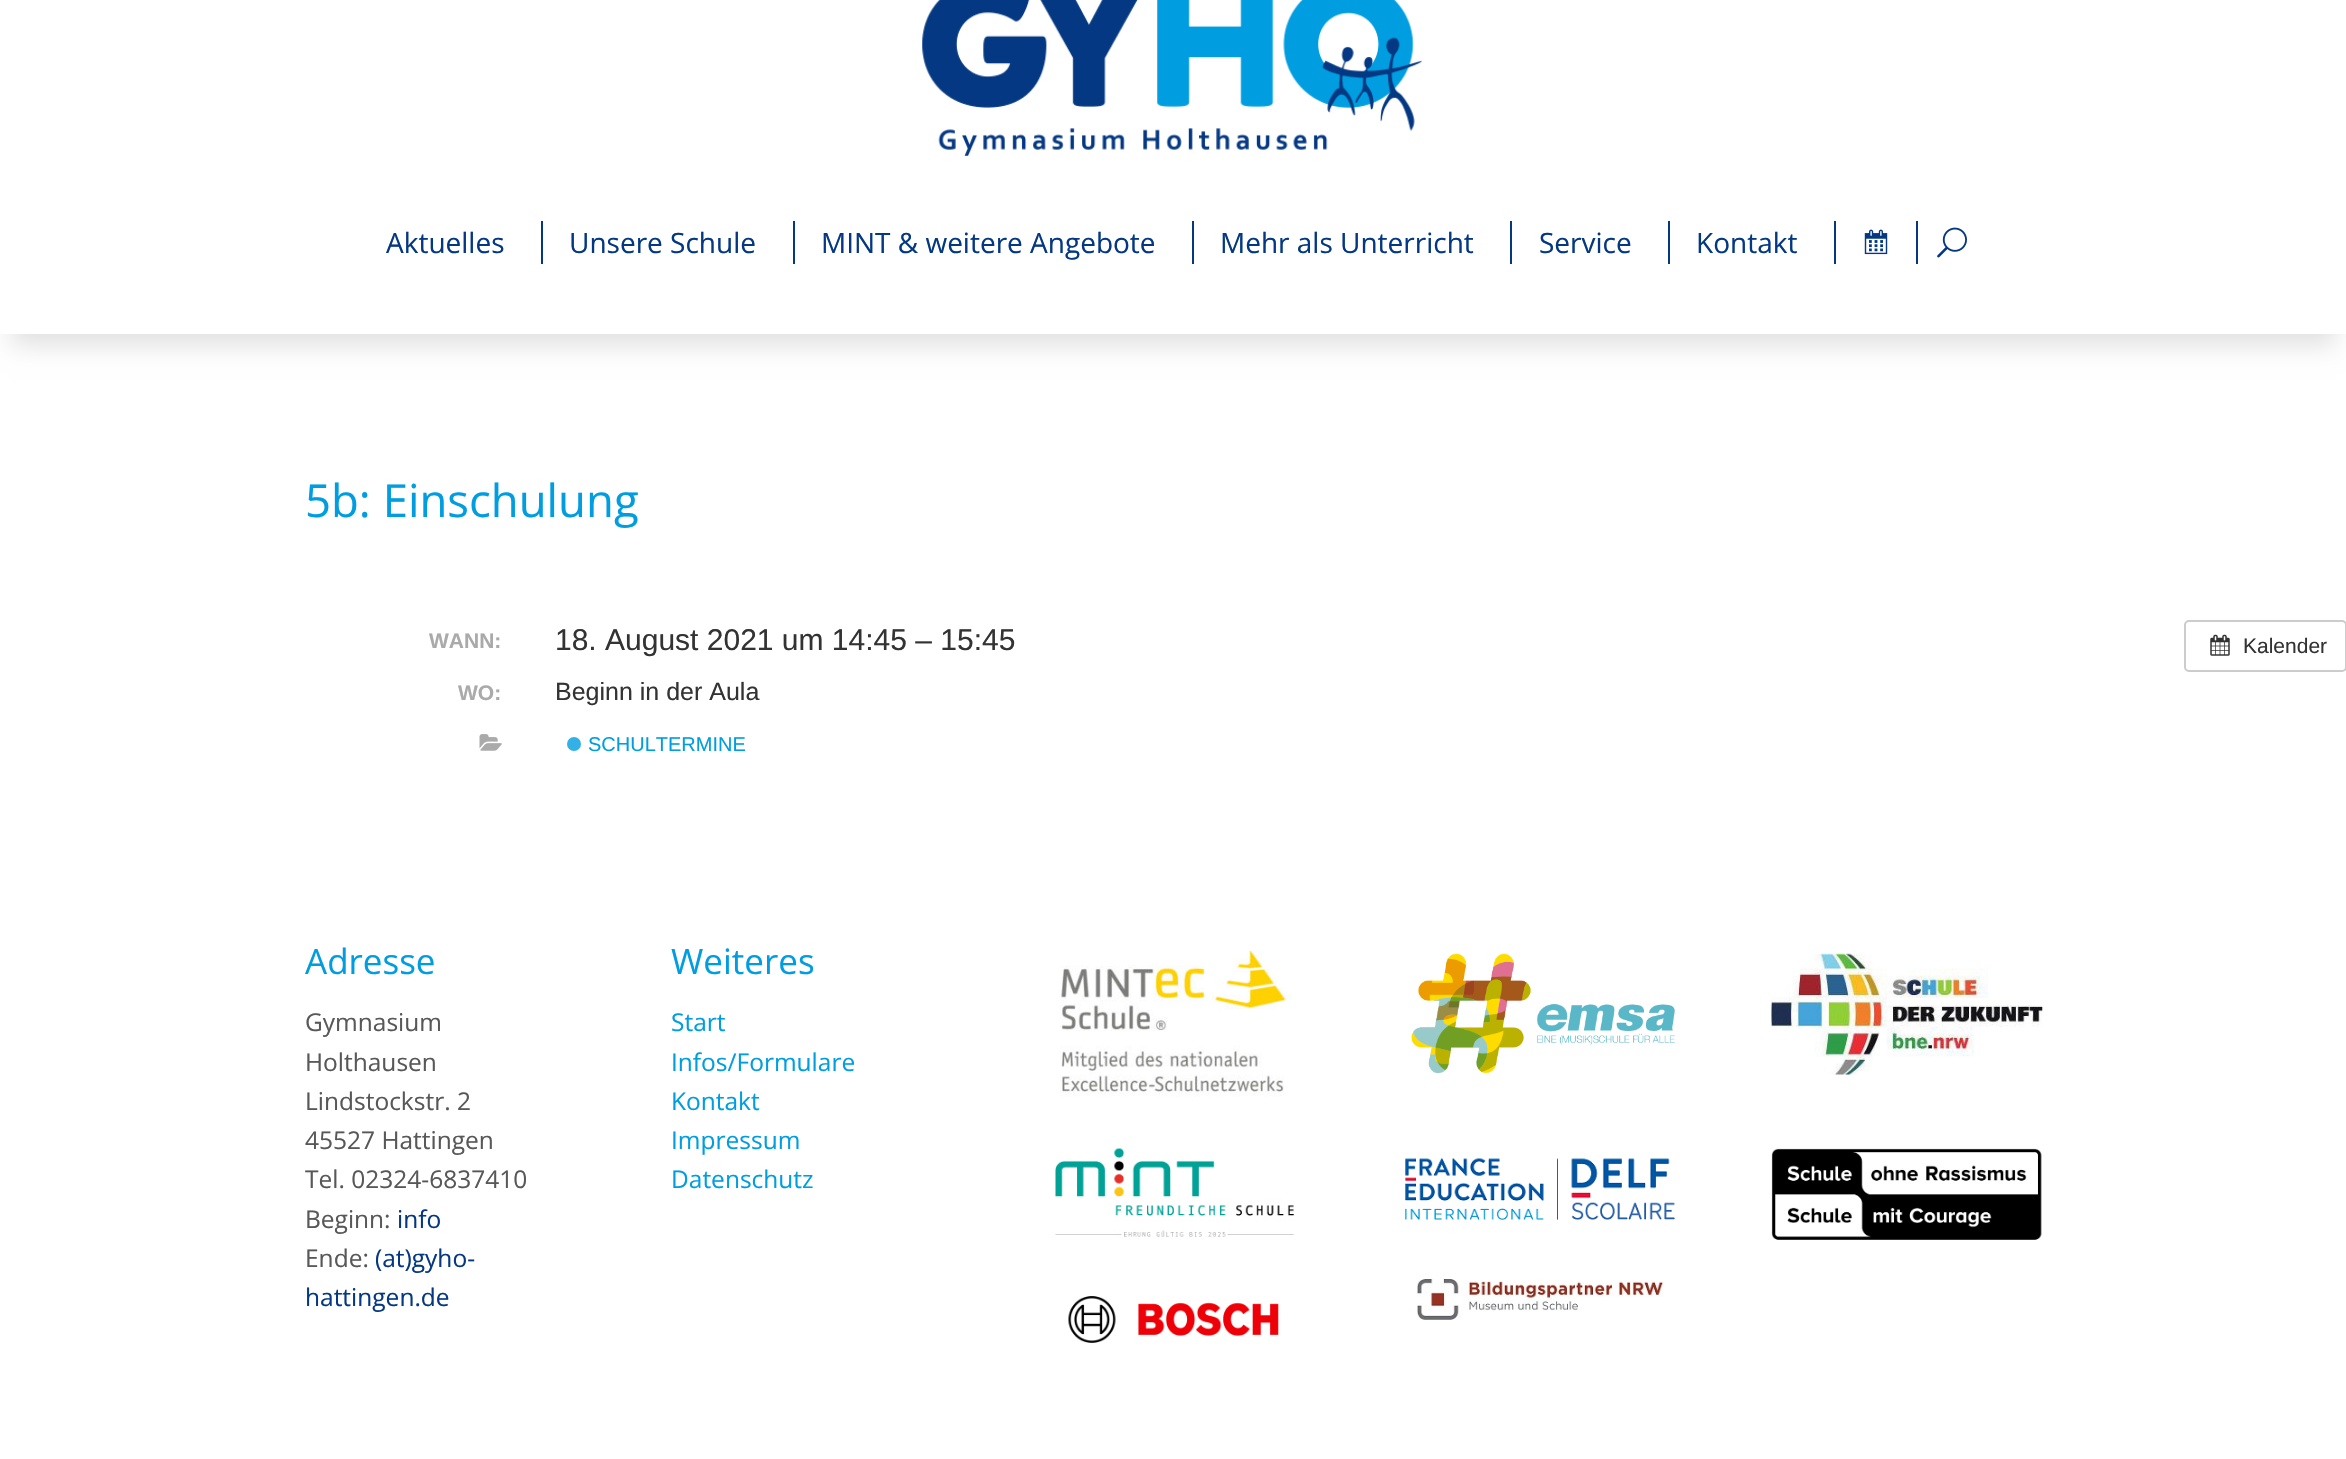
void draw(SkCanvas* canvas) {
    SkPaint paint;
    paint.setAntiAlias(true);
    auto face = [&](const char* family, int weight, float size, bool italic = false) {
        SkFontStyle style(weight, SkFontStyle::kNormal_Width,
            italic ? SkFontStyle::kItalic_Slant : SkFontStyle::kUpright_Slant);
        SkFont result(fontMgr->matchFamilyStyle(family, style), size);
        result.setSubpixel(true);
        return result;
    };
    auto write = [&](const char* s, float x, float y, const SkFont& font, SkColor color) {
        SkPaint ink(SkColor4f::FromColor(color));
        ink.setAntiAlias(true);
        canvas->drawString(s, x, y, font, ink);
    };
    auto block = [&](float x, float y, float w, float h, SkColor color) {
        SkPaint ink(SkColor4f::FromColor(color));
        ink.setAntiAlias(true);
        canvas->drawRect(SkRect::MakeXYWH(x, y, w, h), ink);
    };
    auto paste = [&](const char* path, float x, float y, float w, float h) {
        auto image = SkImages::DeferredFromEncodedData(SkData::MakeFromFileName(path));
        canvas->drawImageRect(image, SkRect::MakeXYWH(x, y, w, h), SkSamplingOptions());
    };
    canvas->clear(SK_ColorWHITE);
    paint.setColor(SkColorSetRGB(224, 224, 224));
    paint.setMaskFilter(SkMaskFilter::MakeBlur(kNormal_SkBlurStyle, 12));
    canvas->drawRect(SkRect::MakeXYWH(11, -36, 2325, 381), paint);
    paint.setMaskFilter(nullptr);
    block(0, 0, 2346, 334, SK_ColorWHITE);
    paste("pic1.png", 922, 0, 500, 156);
    block(541, 221, 2, 43, SkColorSetRGB(4, 56, 130));
    auto kFont1 = face("Open Sans", 400, 28);
    write("Aktuelles", 386, 253, kFont1, SkColorSetRGB(4, 56, 130));
    block(793, 221, 2, 43, SkColorSetRGB(4, 56, 130));
    write("Unsere Schule", 569, 253, kFont1, SkColorSetRGB(4, 56, 130));
    block(1192, 221, 2, 43, SkColorSetRGB(4, 56, 130));
    write("MINT & weitere Angebote", 821, 253, kFont1, SkColorSetRGB(4, 56, 130));
    block(1510, 221, 2, 43, SkColorSetRGB(4, 56, 130));
    write("Mehr als Unterricht", 1220, 253, kFont1, SkColorSetRGB(4, 56, 130));
    block(1668, 221, 2, 43, SkColorSetRGB(4, 56, 130));
    write("Service", 1539, 253, kFont1, SkColorSetRGB(4, 56, 130));
    block(1834, 221, 2, 43, SkColorSetRGB(4, 56, 130));
    write("Kontakt", 1696, 253, kFont1, SkColorSetRGB(4, 56, 130));
    block(1916, 221, 2, 43, SkColorSetRGB(4, 56, 130));
    paste("pic2.png", 1864, 229, 24, 26);
    paste("pic3.png", 1937, 227, 30, 31);
    auto kFont2 = face("Open Sans", 400, 45.5f);
    write("5b: Einschulung", 305, 517, kFont2, SkColorSetRGB(0, 158, 224));
    auto kFont3 = face("Liberation Sans", 700, 21);
    write("WANN:", 429, 648, kFont3, SkColorSetRGB(170, 170, 170));
    auto kFont4 = face("Liberation Sans", 400, 30);
    write("18. August 2021 um 14:45 – 15:45", 555, 650, kFont4, SkColorSetRGB(51, 51, 51));
    write("WO:", 458, 700, kFont3, SkColorSetRGB(170, 170, 170));
    auto kFont5 = face("Liberation Sans", 400, 25);
    write("Beginn in der Aula", 555, 700, kFont5, SkColorSetRGB(51, 51, 51));
    paste("pic4.png", 479, 734, 23, 17);
    paint.setColor(SkColorSetRGB(51, 177, 230));
    canvas->drawCircle(574, 744, 7, paint);
    auto kFont6 = face("Liberation Sans", 400, 20);
    write("SCHULTERMINE", 588, 751, kFont6, SkColorSetRGB(0, 158, 224));
    paint.setStyle(SkPaint::kStroke_Style);
    paint.setStrokeWidth(2);
    paint.setColor(SkColorSetRGB(204, 204, 204));
    canvas->drawRoundRect(SkRect::MakeXYWH(2185, 621, 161, 50), 4, 4, paint);
    paste("pic5.png", 2210, 634, 20, 22);
    auto kFont7 = face("Liberation Sans", 400, 21);
    write("Kalender", 2243, 653, kFont7, SkColorSetRGB(51, 51, 51));
    auto kFont8 = face("Open Sans", 400, 35);
    write("Adresse", 305, 974, kFont8, SkColorSetRGB(0, 158, 224));
    auto kFont9 = face("Open Sans", 400, 24.5f);
    write("Gymnasium", 305, 1031, kFont9, SkColorSetRGB(88, 88, 88));
    write("Holthausen", 305, 1071, kFont9, SkColorSetRGB(88, 88, 88));
    write("Lindstockstr. 2", 305, 1110, kFont9, SkColorSetRGB(88, 88, 88));
    write("45527 Hattingen", 305, 1149, kFont9, SkColorSetRGB(88, 88, 88));
    write("Tel. 02324-6837410", 305, 1188, kFont9, SkColorSetRGB(88, 88, 88));
    write("Beginn:", 305, 1228, kFont9, SkColorSetRGB(88, 88, 88));
    write("info", 397, 1228, kFont9, SkColorSetRGB(4, 56, 130));
    write("Ende:", 305, 1267, kFont9, SkColorSetRGB(88, 88, 88));
    write("(at)gyho-", 375, 1267, kFont9, SkColorSetRGB(4, 56, 130));
    write("hattingen.de", 305, 1306, kFont9, SkColorSetRGB(4, 56, 130));
    write("Weiteres", 671, 974, kFont8, SkColorSetRGB(0, 158, 224));
    write("Start", 671, 1031, kFont9, SkColorSetRGB(0, 158, 224));
    write("Infos/Formulare", 671, 1071, kFont9, SkColorSetRGB(0, 158, 224));
    write("Kontakt", 671, 1110, kFont9, SkColorSetRGB(0, 158, 224));
    write("Impressum", 671, 1149, kFont9, SkColorSetRGB(0, 158, 224));
    write("Datenschutz", 671, 1188, kFont9, SkColorSetRGB(0, 158, 224));
    paste("pic6.png", 1060, 950, 231, 147);
    paste("pic7.png", 1055, 1148, 239, 89);
    paste("pic8.png", 1068, 1296, 211, 47);
    paste("pic9.png", 1411, 953, 264, 121);
    paste("pic10.png", 1405, 1158, 270, 62);
    paste("pic11.png", 1416, 1279, 248, 41);
    paste("pic12.png", 1771, 953, 272, 122);
    paste("pic13.png", 1771, 1148, 271, 92);
}
